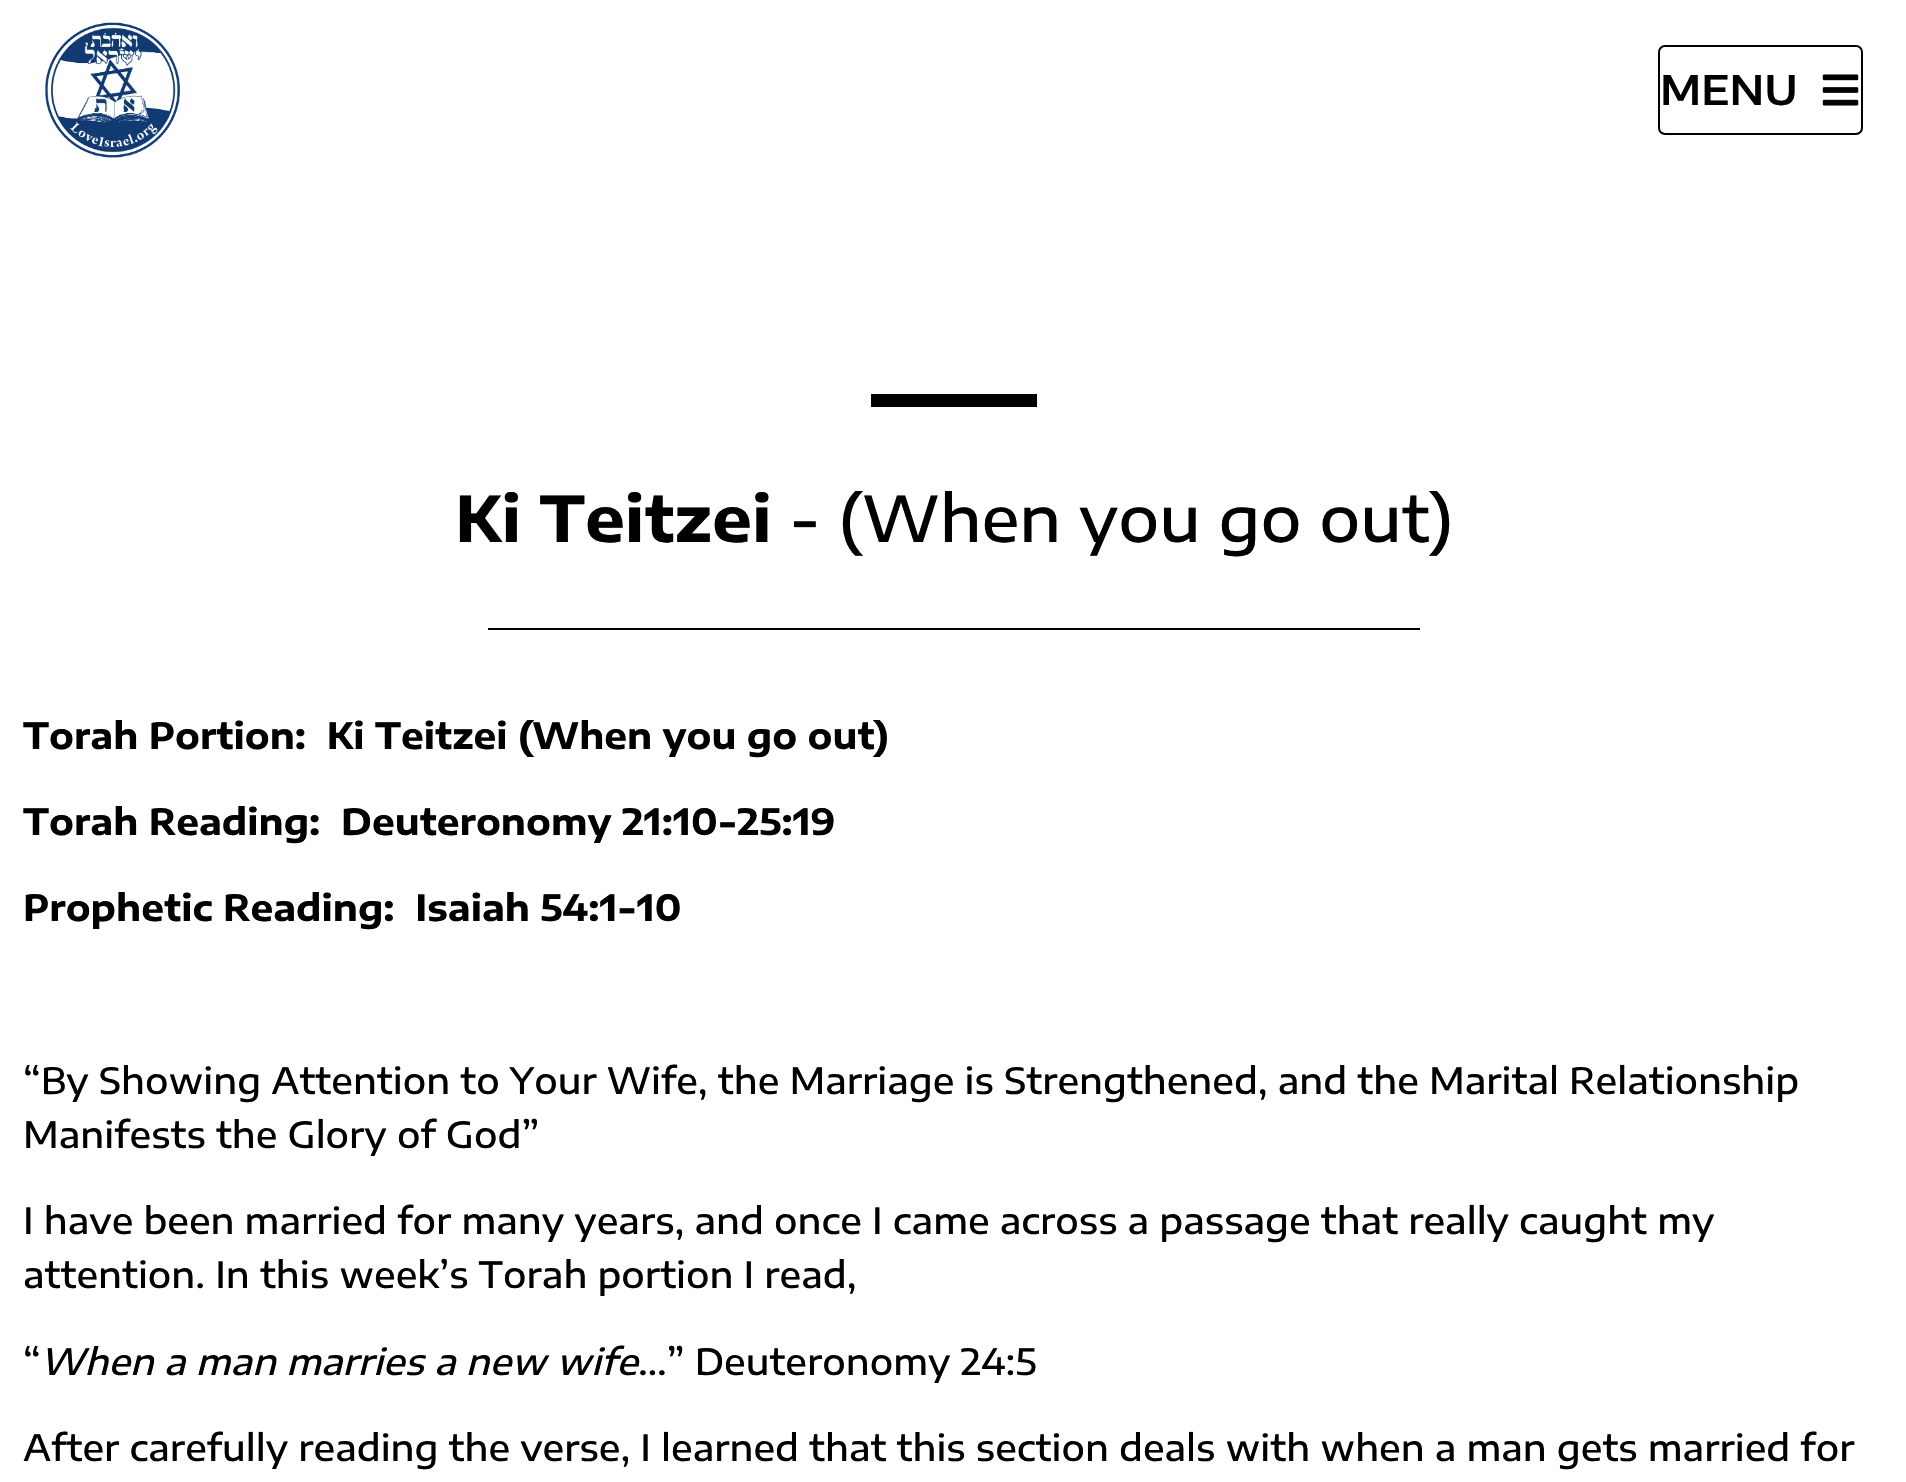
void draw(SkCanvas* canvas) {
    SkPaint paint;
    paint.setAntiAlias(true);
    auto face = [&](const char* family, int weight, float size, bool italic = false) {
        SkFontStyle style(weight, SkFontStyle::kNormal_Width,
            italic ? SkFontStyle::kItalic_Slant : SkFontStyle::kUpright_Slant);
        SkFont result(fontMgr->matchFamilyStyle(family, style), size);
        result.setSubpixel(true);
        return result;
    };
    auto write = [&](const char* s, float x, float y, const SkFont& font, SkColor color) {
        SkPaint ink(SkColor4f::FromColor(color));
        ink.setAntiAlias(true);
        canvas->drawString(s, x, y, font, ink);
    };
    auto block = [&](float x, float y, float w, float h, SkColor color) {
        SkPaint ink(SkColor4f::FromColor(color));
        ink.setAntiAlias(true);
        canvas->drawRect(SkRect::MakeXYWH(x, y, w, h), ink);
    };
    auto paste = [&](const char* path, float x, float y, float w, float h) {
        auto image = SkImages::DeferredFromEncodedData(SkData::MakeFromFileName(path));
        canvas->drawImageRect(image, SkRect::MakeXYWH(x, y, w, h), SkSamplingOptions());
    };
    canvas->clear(SK_ColorWHITE);
    paste("pic1.png", 45, 22, 135, 136);
    paint.setStyle(SkPaint::kStroke_Style);
    paint.setStrokeWidth(2);
    paint.setColor(SK_ColorBLACK);
    canvas->drawRoundRect(SkRect::MakeXYWH(1659, 46, 203, 88), 6, 6, paint);
    auto kFont1 = face("Encode Sans Expanded", 600, 40.5f);
    write("MENU", 1660, 105, kFont1, SK_ColorBLACK);
    paste("pic2.png", 1822, 74, 37, 32);
    block(871, 394, 166, 13, SK_ColorBLACK);
    auto kFont2 = face("Encode Sans Expanded", 700, 63);
    write("Ki Teitzei", 455, 542, kFont2, SK_ColorBLACK);
    auto kFont3 = face("Encode Sans Expanded", 500, 63);
    write("- (When you go out)", 789, 542, kFont3, SK_ColorBLACK);
    block(488, 628, 932, 2, SK_ColorBLACK);
    auto kFont4 = face("Encode Sans Expanded", 700, 36);
    write("Torah Portion:  Ki Teitzei (When you go out)", 23, 749, kFont4, SK_ColorBLACK);
    write("Torah Reading:  Deuteronomy 21:10-25:19", 23, 835, kFont4, SK_ColorBLACK);
    write("Prophetic Reading:  Isaiah 54:1-10", 23, 921, kFont4, SK_ColorBLACK);
    auto kFont5 = face("Encode Sans Expanded", 500, 36);
    write("“By Showing Attention to Your Wife, the Marriage is Strengthened, and the Marital Relationship", 23, 1094, kFont5, SK_ColorBLACK);
    write("Manifests the Glory of God”", 23, 1148, kFont5, SK_ColorBLACK);
    write("I have been married for many years, and once I came across a passage that really caught my", 23, 1234, kFont5, SK_ColorBLACK);
    write("attention. In this week’s Torah portion I read,", 23, 1288, kFont5, SK_ColorBLACK);
    write("“", 23, 1375, kFont5, SK_ColorBLACK);
    auto kFont6 = face("Encode Sans Expanded", 500, 36, true);
    write("When a man marries a new wife", 40, 1375, kFont6, SK_ColorBLACK);
    write("…” Deuteronomy 24:5", 638, 1375, kFont5, SK_ColorBLACK);
    write("After carefully reading the verse, I learned that this section deals with when a man gets married for", 23, 1461, kFont5, SK_ColorBLACK);
}
